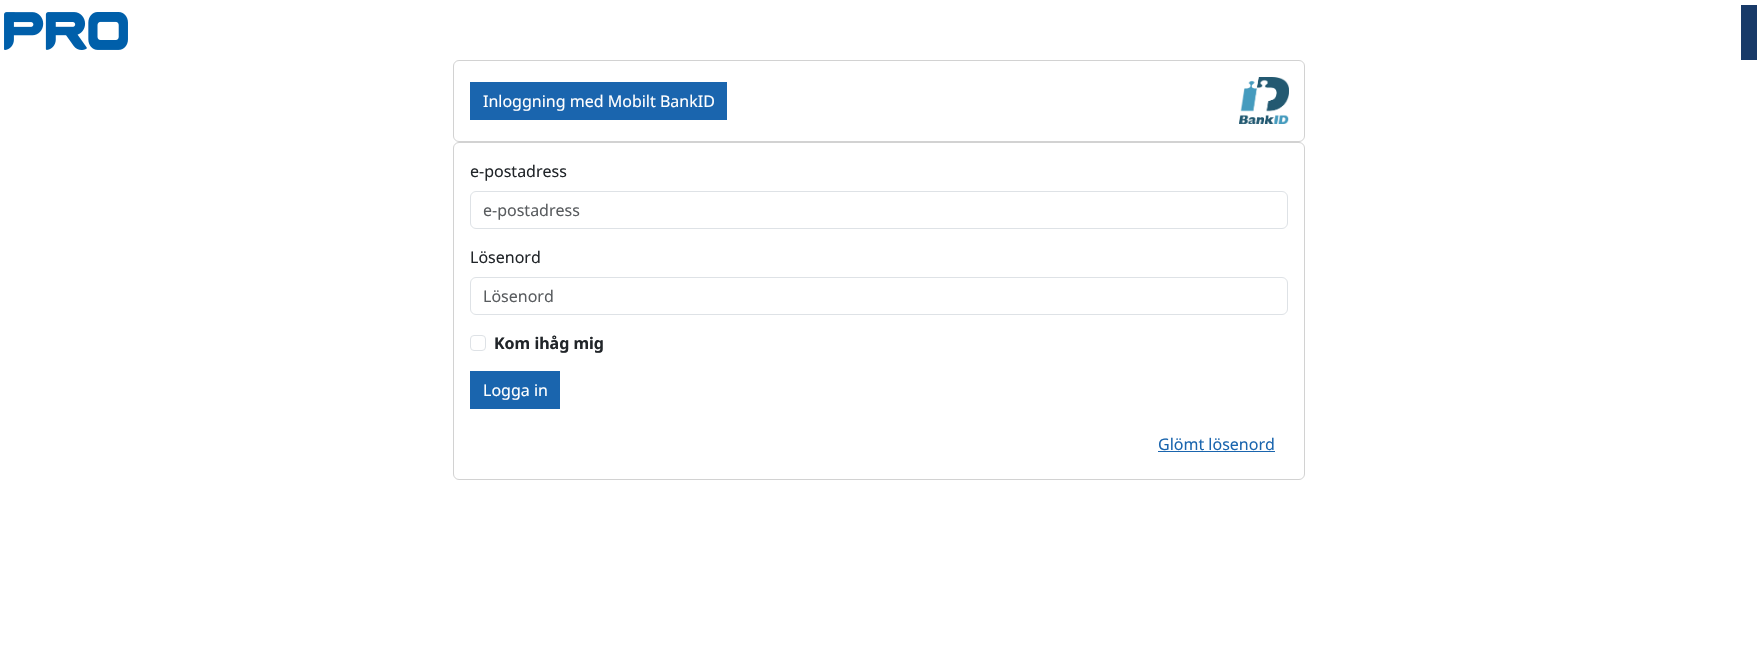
void draw(SkCanvas* canvas) {
    SkPaint paint;
    paint.setAntiAlias(true);
    auto face = [&](const char* family, int weight, float size, bool italic = false) {
        SkFontStyle style(weight, SkFontStyle::kNormal_Width,
            italic ? SkFontStyle::kItalic_Slant : SkFontStyle::kUpright_Slant);
        SkFont result(fontMgr->matchFamilyStyle(family, style), size);
        result.setSubpixel(true);
        return result;
    };
    auto write = [&](const char* s, float x, float y, const SkFont& font, SkColor color) {
        SkPaint ink(SkColor4f::FromColor(color));
        ink.setAntiAlias(true);
        canvas->drawString(s, x, y, font, ink);
    };
    auto block = [&](float x, float y, float w, float h, SkColor color) {
        SkPaint ink(SkColor4f::FromColor(color));
        ink.setAntiAlias(true);
        canvas->drawRect(SkRect::MakeXYWH(x, y, w, h), ink);
    };
    auto paste = [&](const char* path, float x, float y, float w, float h) {
        auto image = SkImages::DeferredFromEncodedData(SkData::MakeFromFileName(path));
        canvas->drawImageRect(image, SkRect::MakeXYWH(x, y, w, h), SkSamplingOptions());
    };
    canvas->clear(SK_ColorWHITE);
    block(1741, 5, 16, 55, SkColorSetRGB(24, 58, 104));
    paste("pic1.png", 4, 12, 124, 38);
    paint.setStyle(SkPaint::kStroke_Style);
    paint.setStrokeWidth(1);
    paint.setColor(SkColorSetRGB(210, 210, 210));
    canvas->drawRoundRect(SkRect::MakeXYWH(453.5f, 60.5f, 851, 81), 5.5f, 5.5f, paint);
    block(470, 82, 257, 38, SkColorSetRGB(26, 101, 174));
    auto kFont1 = face("Noto Sans", 400, 16);
    write("Inloggning med Mobilt BankID", 483, 107, kFont1, SK_ColorWHITE);
    paste("pic2.png", 1239, 77, 50, 47);
    canvas->drawRoundRect(SkRect::MakeXYWH(453.5f, 142.5f, 851, 337), 5.5f, 5.5f, paint);
    write("e-postadress", 470, 177, kFont1, SkColorSetRGB(33, 37, 41));
    paint.setColor(SkColorSetRGB(222, 226, 230));
    canvas->drawRoundRect(SkRect::MakeXYWH(470.5f, 191.5f, 817, 37), 5.5f, 5.5f, paint);
    write("e-postadress", 483, 216, kFont1, SkColorSetRGB(89, 92, 95));
    write("Lösenord", 470, 263, kFont1, SkColorSetRGB(33, 37, 41));
    canvas->drawRoundRect(SkRect::MakeXYWH(470.5f, 277.5f, 817, 37), 5.5f, 5.5f, paint);
    write("Lösenord", 483, 302, kFont1, SkColorSetRGB(89, 92, 95));
    canvas->drawRoundRect(SkRect::MakeXYWH(470.5f, 335.5f, 15, 15), 3.5f, 3.5f, paint);
    auto kFont2 = face("Noto Sans", 700, 16);
    write("Kom ihåg mig", 494, 349, kFont2, SkColorSetRGB(33, 37, 41));
    block(470, 371, 90, 38, SkColorSetRGB(26, 101, 174));
    write("Logga in", 483, 396, kFont1, SK_ColorWHITE);
    write("Glömt lösenord", 1158, 450, kFont1, SkColorSetRGB(26, 101, 174));
    block(1158, 451, 117, 1, SkColorSetRGB(26, 101, 174));
}
